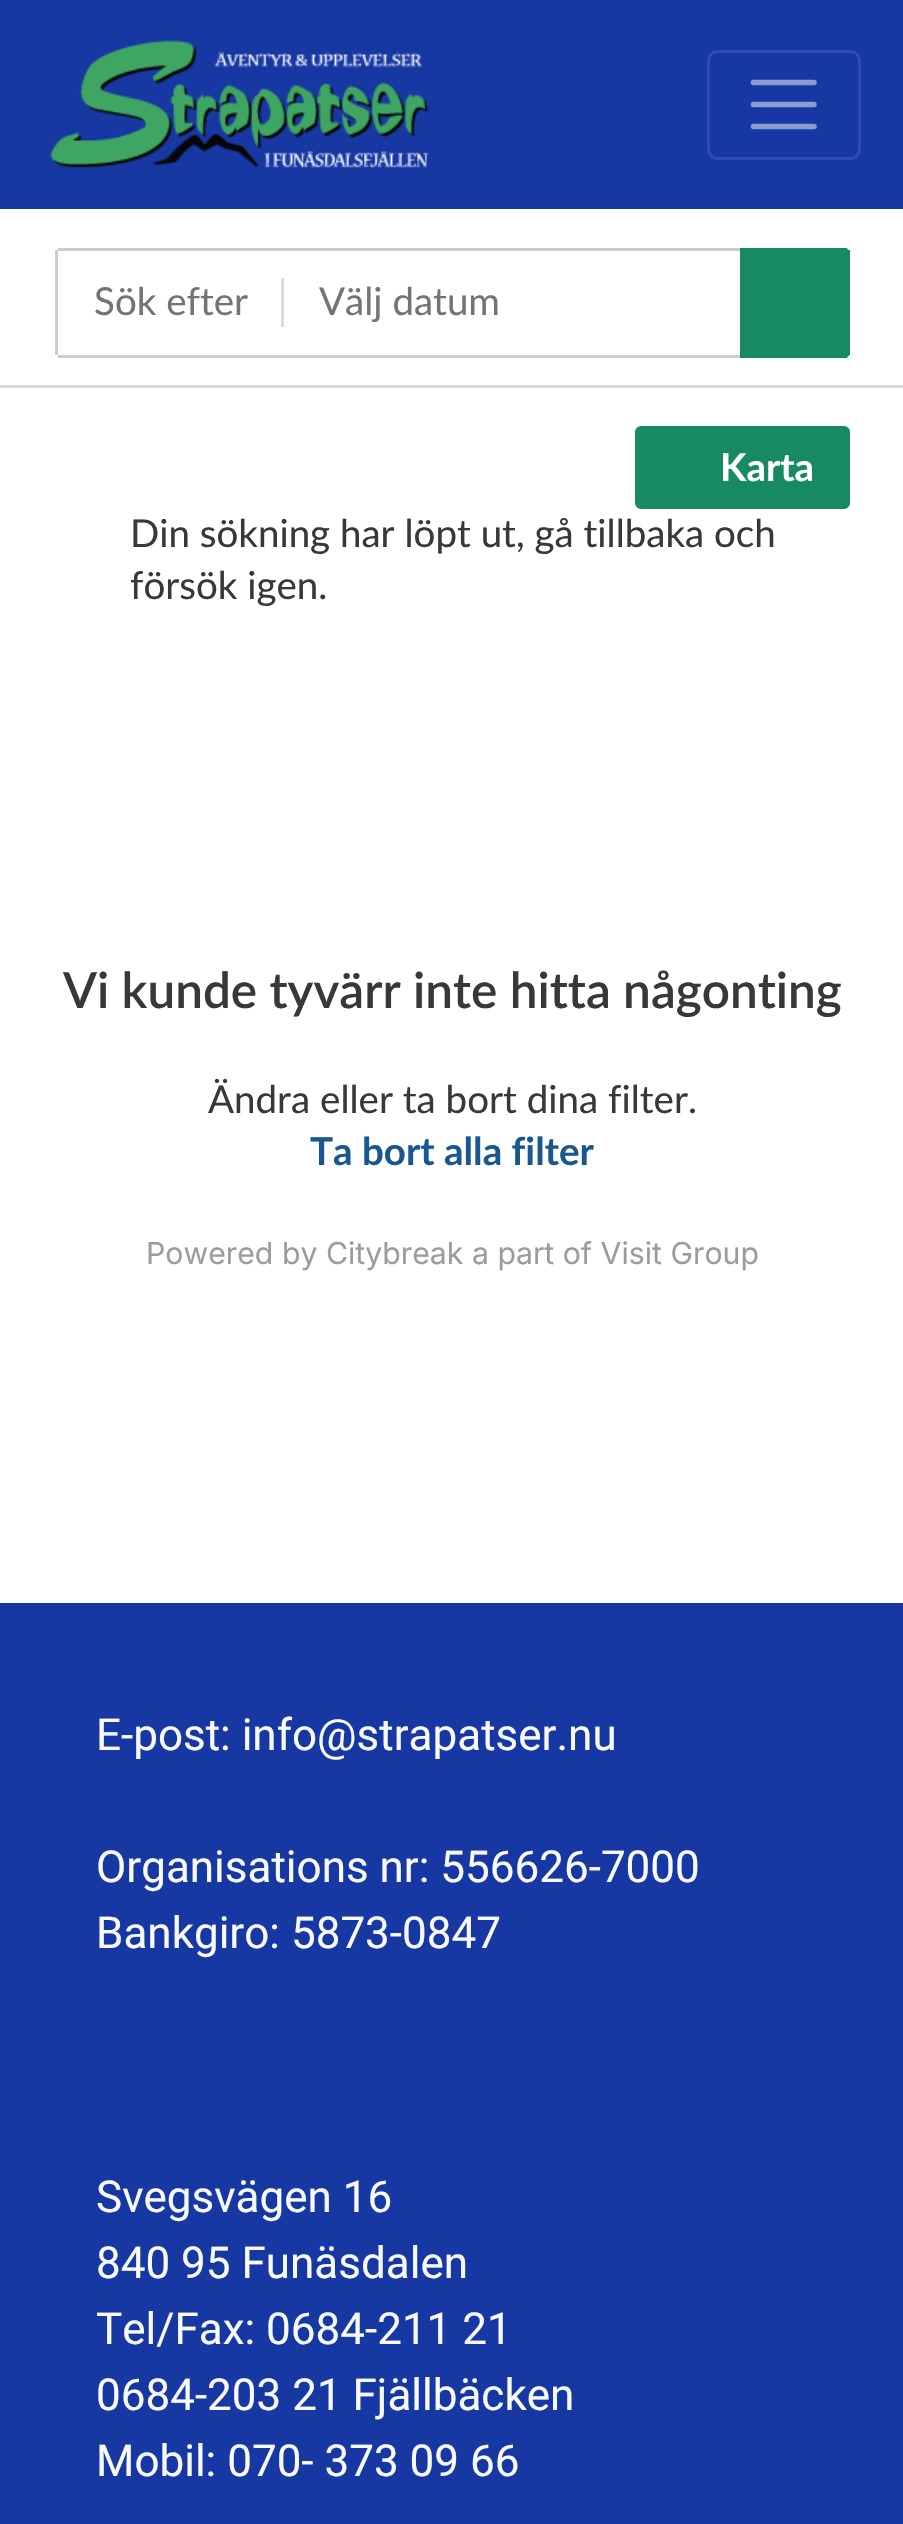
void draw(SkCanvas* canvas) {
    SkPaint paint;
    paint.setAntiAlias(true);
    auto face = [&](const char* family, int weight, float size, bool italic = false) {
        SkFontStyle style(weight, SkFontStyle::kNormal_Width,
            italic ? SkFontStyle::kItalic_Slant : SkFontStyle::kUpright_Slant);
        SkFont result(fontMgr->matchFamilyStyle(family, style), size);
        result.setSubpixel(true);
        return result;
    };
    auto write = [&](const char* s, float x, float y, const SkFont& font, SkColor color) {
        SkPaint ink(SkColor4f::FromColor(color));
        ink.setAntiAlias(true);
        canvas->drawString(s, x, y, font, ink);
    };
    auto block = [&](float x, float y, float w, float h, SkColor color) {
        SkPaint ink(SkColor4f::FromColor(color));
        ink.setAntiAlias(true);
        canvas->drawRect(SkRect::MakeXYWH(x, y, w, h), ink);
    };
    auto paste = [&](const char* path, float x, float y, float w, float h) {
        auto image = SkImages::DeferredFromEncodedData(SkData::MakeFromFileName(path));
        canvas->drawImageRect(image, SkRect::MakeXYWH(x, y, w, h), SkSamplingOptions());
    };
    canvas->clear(SK_ColorWHITE);
    block(0, 0, 903, 209, SkColorSetRGB(23, 56, 163));
    paste("pic1.png", 50, 40, 379, 128);
    paint.setStyle(SkPaint::kStroke_Style);
    paint.setStrokeWidth(3);
    paint.setColor(SkColorSetRGB(46, 76, 172));
    canvas->drawRoundRect(SkRect::MakeXYWH(708.5f, 51.5f, 151, 107), 9.5f, 9.5f, paint);
    paint.setStrokeWidth(5.5f);
    paint.setStrokeCap(SkPaint::kRound_Cap);
    paint.setColor(SkColorSetRGB(139, 156, 209));
    canvas->drawPath(SkPathBuilder().moveTo(753.5f, 82.5f).lineTo(814, 82.5f).moveTo(753.5f, 104.5f).lineTo(814, 104.5f).moveTo(753.5f, 126.5f).lineTo(814, 126.5f).detach(), paint);
    paint.setStyle(SkPaint::kFill_Style);
    paint.setColor(SkColorSetRGB(217, 217, 217));
    canvas->drawPath(SkPathBuilder().moveTo(0, 385).lineTo(0, 388).lineTo(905, 388).lineTo(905, 223).lineTo(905, 385).close().detach(), paint);
    block(58, 248, 682, 3, SkColorSetRGB(204, 204, 204));
    block(58, 355, 682, 3, SkColorSetRGB(204, 204, 204));
    block(55, 250, 3, 105, SkColorSetRGB(204, 204, 204));
    auto kFont1 = face("Lato", 400, 38.5f);
    write("Sök efter", 94, 315, kFont1, SkColorSetRGB(116, 116, 116));
    block(281, 278, 3, 49, SkColorSetRGB(219, 219, 219));
    write("Välj datum", 319, 315, kFont1, SkColorSetRGB(116, 116, 116));
    paint.setColor(SkColorSetRGB(23, 138, 101));
    canvas->drawPath(SkPathBuilder().moveTo(740, 248).lineTo(844, 248).cubicTo(847.5f, 248, 850, 250.5f, 850, 254).lineTo(850, 352).cubicTo(850, 355.5f, 847.5f, 358, 844, 358).lineTo(740, 358).close().detach(), paint);
    block(844, 248, 3, 1, SkColorSetRGB(23, 138, 101));
    block(848, 250, 2, 105, SkColorSetRGB(23, 138, 101));
    block(844, 357, 3, 1, SkColorSetRGB(23, 138, 101));
    canvas->drawRoundRect(SkRect::MakeXYWH(636.5f, 427.5f, 212, 80), 4.5f, 4.5f, paint);
    paint.setStyle(SkPaint::kStroke_Style);
    paint.setStrokeWidth(3);
    paint.setStrokeCap(SkPaint::kButt_Cap);
    canvas->drawRoundRect(SkRect::MakeXYWH(636.5f, 427.5f, 212, 80), 4.5f, 4.5f, paint);
    auto kFont2 = face("Lato", 700, 38.5f);
    write("Karta", 720, 481, kFont2, SK_ColorWHITE);
    write("Din sökning har löpt ut, gå tillbaka och", 130, 547, kFont1, SkColorSetRGB(56, 56, 56));
    write("försök igen.", 130, 599, kFont1, SkColorSetRGB(56, 56, 56));
    auto kFont3 = face("Lato", 600, 49.5f);
    write("Vi kunde tyvärr inte hitta någonting", 63, 1008, kFont3, SkColorSetRGB(56, 56, 56));
    write("Ändra eller ta bort dina filter.", 208, 1113, kFont1, SkColorSetRGB(56, 56, 56));
    write("Ta bort alla filter", 310, 1165, kFont2, SkColorSetRGB(24, 87, 144));
    auto kFont4 = face("Inter", 400, 30.25f);
    write("Powered by Citybreak a part of Visit Group", 146, 1264, kFont4, SkColorSetRGB(156, 156, 156));
    block(0, 1603, 903, 921, SkColorSetRGB(23, 56, 163));
    auto kFont5 = face("Roboto", 400, 44);
    write("E-post: info@strapatser.nu", 96, 1750, kFont5, SkColorSetRGB(248, 249, 250));
    write("Organisations nr: 556626-7000", 96, 1882, kFont5, SkColorSetRGB(248, 249, 250));
    write("Bankgiro: 5873-0847", 96, 1948, kFont5, SkColorSetRGB(248, 249, 250));
    write("Svegsvägen 16", 96, 2212, kFont5, SkColorSetRGB(248, 249, 250));
    write("840 95 Funäsdalen", 96, 2278, kFont5, SkColorSetRGB(248, 249, 250));
    write("Tel/Fax: 0684-211 21", 96, 2344, kFont5, SkColorSetRGB(248, 249, 250));
    write("0684-203 21 Fjällbäcken", 96, 2410, kFont5, SkColorSetRGB(248, 249, 250));
    write("Mobil: 070- 373 09 66", 96, 2476, kFont5, SkColorSetRGB(248, 249, 250));
}
